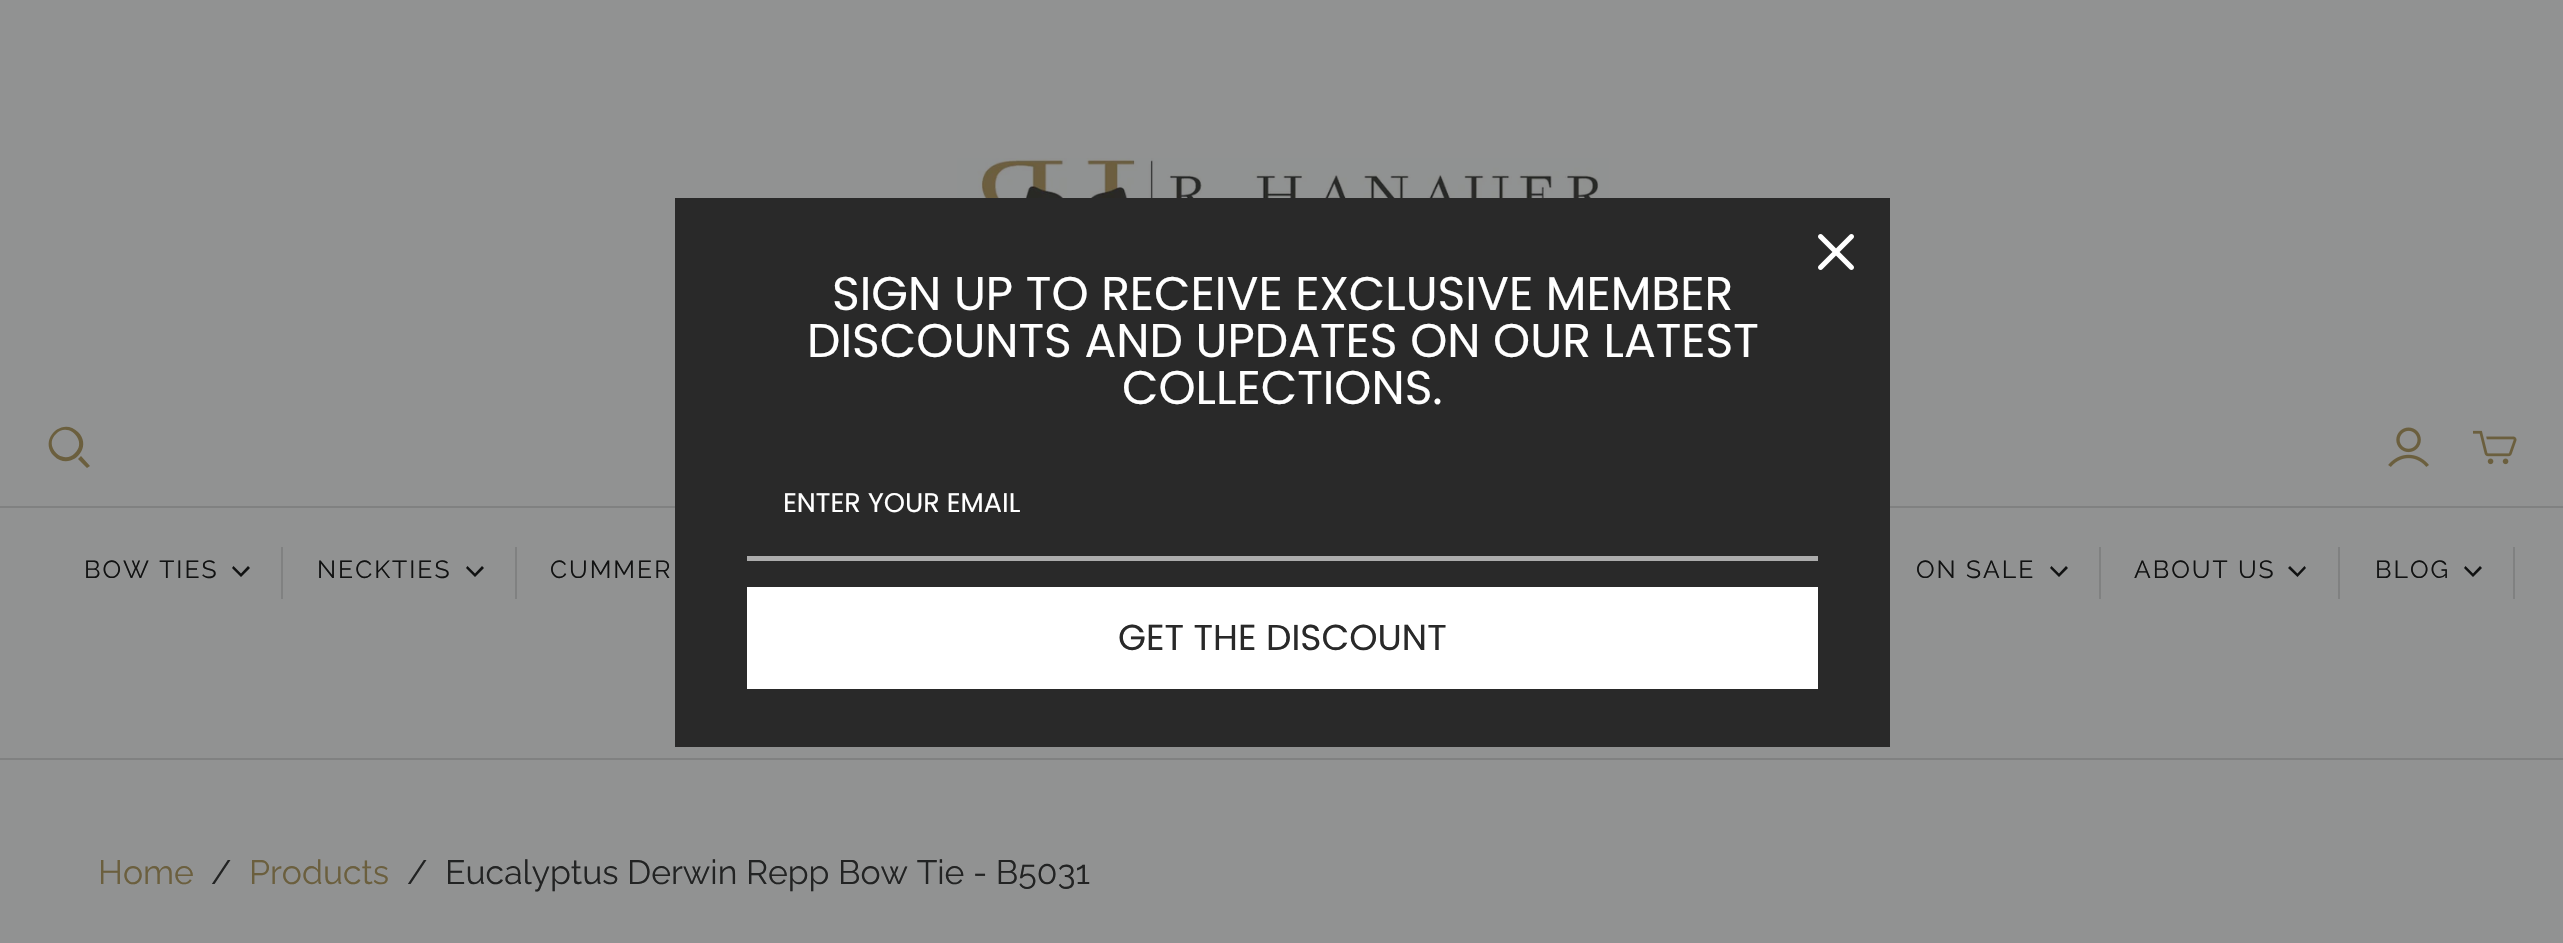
void draw(SkCanvas* canvas) {
    SkPaint paint;
    paint.setAntiAlias(true);
    auto face = [&](const char* family, int weight, float size, bool italic = false) {
        SkFontStyle style(weight, SkFontStyle::kNormal_Width,
            italic ? SkFontStyle::kItalic_Slant : SkFontStyle::kUpright_Slant);
        SkFont result(fontMgr->matchFamilyStyle(family, style), size);
        result.setSubpixel(true);
        return result;
    };
    auto write = [&](const char* s, float x, float y, const SkFont& font, SkColor color) {
        SkPaint ink(SkColor4f::FromColor(color));
        ink.setAntiAlias(true);
        canvas->drawString(s, x, y, font, ink);
    };
    auto writeSpaced = [&](const char* s, float x, float y, const SkFont& font, const SkPaint& ink, float letter, float word) {
        std::vector<SkGlyphID> glyphs(font.countText(s, strlen(s), SkTextEncoding::kUTF8));
        std::vector<float> xs(glyphs.size());
        font.textToGlyphs(s, strlen(s), SkTextEncoding::kUTF8, glyphs);
        font.getXPos(glyphs, xs, x);
        float extra = 0;
        for (size_t i = 0; i < glyphs.size(); i++) {
            xs[i] += extra;
            extra += letter + word * (glyphs[i] == font.unicharToGlyph(' '));
        }
        canvas->drawTextBlob(SkTextBlob::MakeFromPosHGlyphs(glyphs, xs, y, font), 0, 0, ink);
    };
    auto block = [&](float x, float y, float w, float h, SkColor color) {
        SkPaint ink(SkColor4f::FromColor(color));
        ink.setAntiAlias(true);
        canvas->drawRect(SkRect::MakeXYWH(x, y, w, h), ink);
    };
    auto paste = [&](const char* path, float x, float y, float w, float h) {
        auto image = SkImages::DeferredFromEncodedData(SkData::MakeFromFileName(path));
        canvas->drawImageRect(image, SkRect::MakeXYWH(x, y, w, h), SkSamplingOptions());
    };
    canvas->clear(SkColorSetRGB(145, 146, 146));
    block(0, 506, 2563, 2, SkColorSetRGB(128, 129, 129));
    block(675, 198, 1215, 549, SkColorSetRGB(41, 41, 41));
    paste("pic1.png", 1818, 234, 36, 36);
    auto kFont1 = face("Poppins", 400, 47.25f);
    write("SIGN UP TO RECEIVE EXCLUSIVE MEMBER", 832, 310, kFont1, SK_ColorWHITE);
    write("DISCOUNTS AND UPDATES ON OUR LATEST", 807, 357, kFont1, SK_ColorWHITE);
    write("COLLECTIONS.", 1122, 404, kFont1, SK_ColorWHITE);
    block(747, 556, 1071, 5, SkColorSetRGB(172, 172, 172));
    auto kFont2 = face("Poppins", 400, 27);
    write("ENTER YOUR EMAIL", 783, 512, kFont2, SK_ColorWHITE);
    block(747, 587, 1071, 102, SK_ColorWHITE);
    auto kFont3 = face("Poppins", 400, 36);
    write("GET THE DISCOUNT", 1118, 650, kFont3, SkColorSetRGB(41, 41, 41));
    paste("pic2.png", 957, 158, 652, 40);
    paint.setColor(SkColorSetRGB(107, 95, 62));
    canvas->drawPath(SkPathBuilder(SkPathFillType::kEvenOdd).moveTo(56, 434).cubicTo(43, 446, 63, 466, 75, 453).cubicTo(88, 441, 68, 421, 56, 434).close().moveTo(54, 456).cubicTo(38, 440, 62, 416, 78, 432).cubicTo(94, 448, 70, 472, 54, 456).close().moveTo(87, 468).lineTo(78, 459).lineTo(81, 456).lineTo(90, 466).close().detach(), paint);
    paste("pic3.png", 2388, 427, 41, 40);
    paste("pic4.png", 2473, 430, 44, 35);
    block(0, 758, 2563, 2, SkColorSetRGB(128, 129, 129));
    auto kFont4 = face("Raleway", 400, 24.75f);
    paint.setColor(SkColorSetRGB(17, 18, 18));
    writeSpaced("BOW TIES", 84, 578, kFont4, paint, 2, 0);
    canvas->drawPath(SkPathBuilder().moveTo(232, 568).lineTo(233.5f, 566).lineTo(241, 573.5f).lineTo(248, 566).lineTo(250, 568).lineTo(241, 577).close().detach(), paint);
    block(281, 547, 2, 52, SkColorSetRGB(128, 129, 129));
    writeSpaced("NECKTIES", 317, 578, kFont4, paint, 2, 0);
    canvas->drawPath(SkPathBuilder().moveTo(466, 568).lineTo(467.5f, 566).lineTo(475, 573.5f).lineTo(482, 566).lineTo(484, 568).lineTo(475, 577).close().detach(), paint);
    block(515, 547, 2, 52, SkColorSetRGB(128, 129, 129));
    writeSpaced("CUMMER", 550, 578, kFont4, paint, 2, 0);
    writeSpaced("ON SALE", 1916, 578, kFont4, paint, 2, 0);
    canvas->drawPath(SkPathBuilder().moveTo(2050, 568).lineTo(2051.5f, 566).lineTo(2059, 573.5f).lineTo(2066, 566).lineTo(2068, 568).lineTo(2059, 577).close().detach(), paint);
    block(2099, 547, 2, 52, SkColorSetRGB(128, 129, 129));
    writeSpaced("ABOUT US", 2134, 578, kFont4, paint, 2, 0);
    canvas->drawPath(SkPathBuilder().moveTo(2288, 568).lineTo(2290, 566).lineTo(2297.5f, 573.5f).lineTo(2304.5f, 566).lineTo(2306, 568).lineTo(2297.5f, 577).close().detach(), paint);
    block(2338, 547, 2, 52, SkColorSetRGB(128, 129, 129));
    writeSpaced("BLOG", 2375, 578, kFont4, paint, 2, 0);
    canvas->drawPath(SkPathBuilder().moveTo(2464, 568).lineTo(2465.5f, 566).lineTo(2473, 573.5f).lineTo(2480, 566).lineTo(2482, 568).lineTo(2473, 577).close().detach(), paint);
    block(2513, 547, 2, 52, SkColorSetRGB(128, 129, 129));
    auto kFont5 = face("Raleway", 400, 33.75f);
    write("Home", 98, 884, kFont5, SkColorSetRGB(107, 95, 62));
    write("/", 211, 884, kFont5, SkColorSetRGB(34, 35, 35));
    write("Products", 249, 884, kFont5, SkColorSetRGB(107, 95, 62));
    write("/", 407, 884, kFont5, SkColorSetRGB(34, 35, 35));
    write("Eucalyptus Derwin Repp Bow Tie - B5031", 445, 884, kFont5, SkColorSetRGB(34, 35, 35));
}
